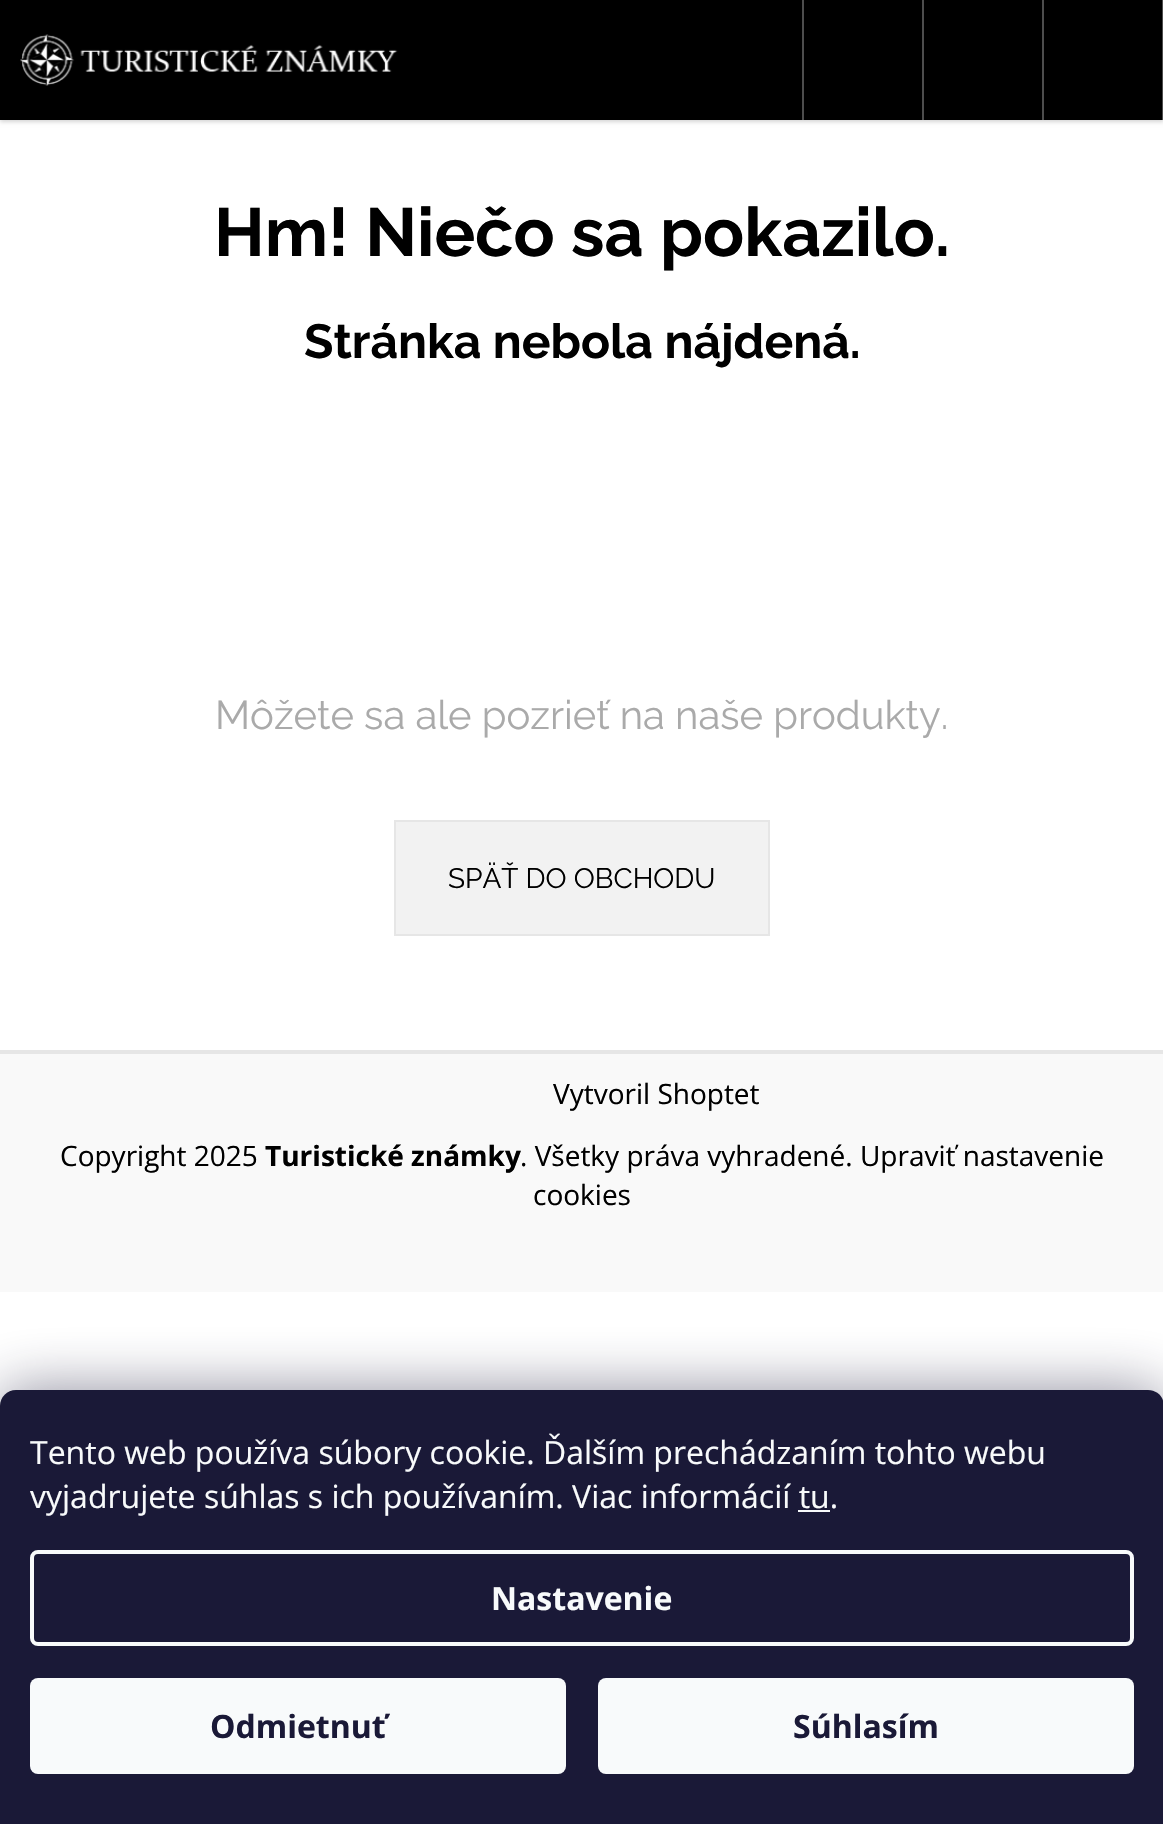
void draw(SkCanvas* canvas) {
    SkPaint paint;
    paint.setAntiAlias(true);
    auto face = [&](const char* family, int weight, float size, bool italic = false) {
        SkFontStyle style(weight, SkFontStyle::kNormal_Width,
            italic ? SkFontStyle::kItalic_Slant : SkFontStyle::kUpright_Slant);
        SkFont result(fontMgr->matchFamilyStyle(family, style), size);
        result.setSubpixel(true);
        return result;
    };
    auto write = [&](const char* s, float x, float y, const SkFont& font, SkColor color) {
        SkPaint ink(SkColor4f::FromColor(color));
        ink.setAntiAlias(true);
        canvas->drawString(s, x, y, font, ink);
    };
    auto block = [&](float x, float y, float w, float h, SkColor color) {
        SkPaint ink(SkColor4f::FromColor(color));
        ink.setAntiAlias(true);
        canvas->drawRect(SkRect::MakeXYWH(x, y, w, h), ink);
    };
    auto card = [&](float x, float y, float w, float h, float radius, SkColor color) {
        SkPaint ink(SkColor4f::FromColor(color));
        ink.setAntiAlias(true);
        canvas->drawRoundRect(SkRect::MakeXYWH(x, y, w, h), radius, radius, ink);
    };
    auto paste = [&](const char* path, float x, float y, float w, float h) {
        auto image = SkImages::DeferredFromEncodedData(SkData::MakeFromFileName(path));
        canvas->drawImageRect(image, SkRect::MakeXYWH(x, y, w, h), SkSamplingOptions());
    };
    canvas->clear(SK_ColorWHITE);
    paint.setColor(SkColorSetARGB(41, 0, 0, 0));
    paint.setMaskFilter(SkMaskFilter::MakeBlur(kNormal_SkBlurStyle, 2));
    canvas->drawRect(SkRect::MakeXYWH(0, 2, 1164, 120), paint);
    paint.setMaskFilter(nullptr);
    block(0, 0, 1162, 120, SK_ColorBLACK);
    paste("pic1.png", 20, 34, 378, 52);
    block(1162, 0, 1, 120, SkColorSetRGB(77, 77, 77));
    block(802, 0, 2, 120, SkColorSetRGB(77, 77, 77));
    block(922, 0, 2, 120, SkColorSetRGB(77, 77, 77));
    block(1042, 0, 2, 120, SkColorSetRGB(77, 77, 77));
    auto kFont1 = face("Raleway", 700, 68);
    write("Hm! Niečo sa pokazilo.", 214, 256, kFont1, SK_ColorBLACK);
    auto kFont2 = face("Raleway", 700, 48);
    write("Stránka nebola nájdená.", 304, 358, kFont2, SK_ColorBLACK);
    auto kFont3 = face("Raleway", 400, 40);
    write("Môžete sa ale pozrieť na naše produkty.", 215, 729, kFont3, SkColorSetRGB(170, 170, 170));
    paint.setColor(SkColorSetRGB(242, 242, 242));
    canvas->drawRect(SkRect::MakeXYWH(395, 821, 374, 114), paint);
    paint.setStyle(SkPaint::kStroke_Style);
    paint.setStrokeWidth(2);
    paint.setColor(SkColorSetRGB(230, 230, 230));
    canvas->drawRect(SkRect::MakeXYWH(395, 821, 374, 114), paint);
    auto kFont4 = face("Raleway", 400, 28);
    write("SPÄŤ DO OBCHODU", 448, 888, kFont4, SK_ColorBLACK);
    block(0, 1054, 1163, 238, SkColorSetRGB(249, 249, 249));
    block(0, 1050, 1163, 4, SkColorSetRGB(230, 230, 230));
    auto kFont5 = face("Open Sans", 400, 28);
    write("Vytvoril Shoptet", 553, 1104, kFont5, SK_ColorBLACK);
    write("Copyright 2025", 60, 1166, kFont5, SK_ColorBLACK);
    auto kFont6 = face("Open Sans", 700, 28);
    write("Turistické známky", 265, 1166, kFont6, SK_ColorBLACK);
    write(". Všetky práva vyhradené. Upraviť nastavenie", 520, 1166, kFont5, SK_ColorBLACK);
    write("cookies", 533, 1205, kFont5, SK_ColorBLACK);
    paint.setStyle(SkPaint::kFill_Style);
    paint.setColor(SkColorSetARGB(128, 27, 25, 57));
    paint.setMaskFilter(SkMaskFilter::MakeBlur(kNormal_SkBlurStyle, 30));
    canvas->drawRoundRect(SkRect::MakeXYWH(0, 1390, 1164, 434), 16, 16, paint);
    paint.setMaskFilter(nullptr);
    paint.setColor(SkColorSetRGB(26, 25, 55));
    canvas->drawPath(SkPathBuilder().moveTo(16, 1390).lineTo(1148, 1390).cubicTo(1157, 1390, 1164, 1397, 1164, 1406).lineTo(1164, 1824).lineTo(0, 1824).lineTo(0, 1406).cubicTo(0, 1397, 7, 1390, 16, 1390).close().detach(), paint);
    auto kFont7 = face("Open Sans", 400, 32);
    write("Tento web používa súbory cookie. Ďalším prechádzaním tohto webu", 30, 1464, kFont7, SkColorSetRGB(248, 250, 251));
    write("vyjadrujete súhlas s ich používaním. Viac informácií tu.", 30, 1508, kFont7, SkColorSetRGB(248, 250, 251));
    block(798, 1510, 32, 2, SkColorSetRGB(248, 250, 251));
    paint.setStyle(SkPaint::kStroke_Style);
    paint.setStrokeWidth(4);
    paint.setColor(SkColorSetRGB(248, 250, 251));
    canvas->drawRoundRect(SkRect::MakeXYWH(32, 1552, 1100, 92), 6, 6, paint);
    auto kFont8 = face("Open Sans", 700, 32);
    write("Nastavenie", 491, 1610, kFont8, SkColorSetRGB(248, 250, 251));
    card(30, 1678, 536, 96, 8, SkColorSetRGB(248, 250, 251));
    write("Odmietnuť", 210, 1738, kFont8, SkColorSetRGB(26, 25, 55));
    card(598, 1678, 536, 96, 8, SkColorSetRGB(248, 250, 251));
    write("Súhlasím", 793, 1738, kFont8, SkColorSetRGB(26, 25, 55));
}
